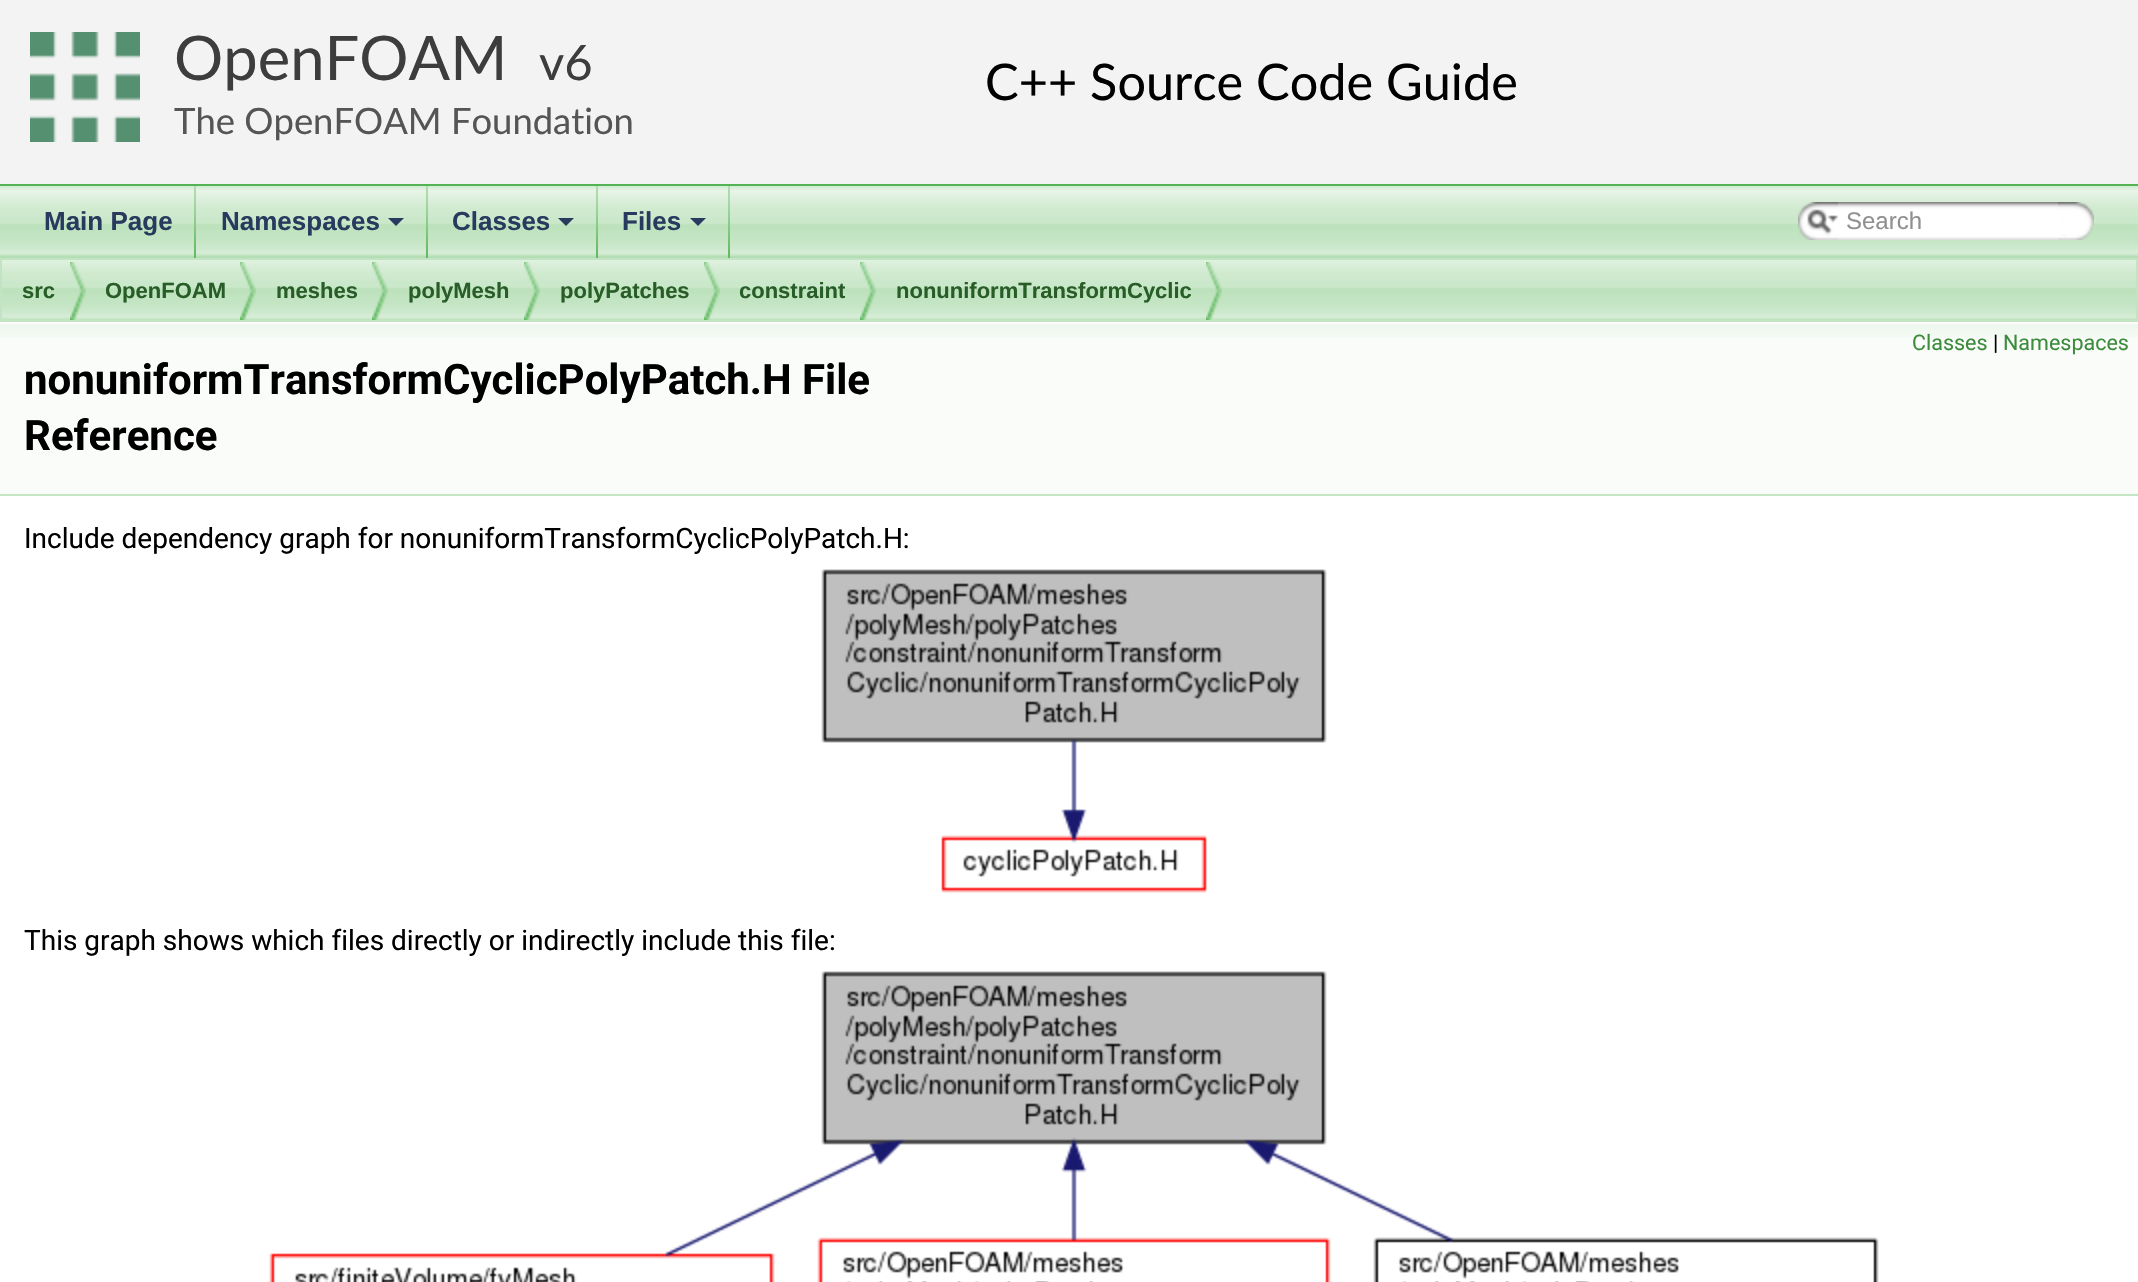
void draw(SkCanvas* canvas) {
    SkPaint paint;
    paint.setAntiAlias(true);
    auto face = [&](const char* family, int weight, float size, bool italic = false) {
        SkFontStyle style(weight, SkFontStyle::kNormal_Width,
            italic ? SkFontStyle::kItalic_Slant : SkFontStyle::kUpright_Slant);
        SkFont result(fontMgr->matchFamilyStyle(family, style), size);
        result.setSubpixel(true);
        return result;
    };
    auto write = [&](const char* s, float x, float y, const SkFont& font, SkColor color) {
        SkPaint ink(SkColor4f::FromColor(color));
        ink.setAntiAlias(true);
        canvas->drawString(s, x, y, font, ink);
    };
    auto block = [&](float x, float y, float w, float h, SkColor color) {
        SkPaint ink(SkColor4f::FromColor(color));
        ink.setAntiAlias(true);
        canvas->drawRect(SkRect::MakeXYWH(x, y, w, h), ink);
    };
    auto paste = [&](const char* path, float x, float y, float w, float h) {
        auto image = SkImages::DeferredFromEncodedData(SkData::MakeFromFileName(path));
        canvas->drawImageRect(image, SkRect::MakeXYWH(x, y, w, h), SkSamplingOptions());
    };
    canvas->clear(SK_ColorWHITE);
    block(0, 0, 2138, 184, SkColorSetRGB(243, 243, 243));
    block(0, 184, 2138, 2, SkColorSetRGB(83, 180, 83));
    paste("pic1.png", 30, 32, 110, 110);
    auto kFont1 = face("Lato", 400, 61.5f);
    write("OpenFOAM", 174, 80, kFont1, SkColorSetRGB(61, 61, 61));
    auto kFont2 = face("Lato", 400, 49);
    write("v6", 539, 80, kFont2, SkColorSetRGB(61, 61, 61));
    auto kFont3 = face("Lato", 400, 36.4f);
    write("The OpenFOAM Foundation", 174, 134, kFont3, SkColorSetRGB(85, 85, 85));
    auto kFont4 = face("Lato", 400, 50.4f);
    write("C++ Source Code Guide", 985, 100, kFont4, SK_ColorBLACK);
    paste("pic2.png", 0, 186, 2138, 72);
    paste("pic3.png", 194, 186, 2, 72);
    auto kFont5 = face("Liberation Sans", 700, 26);
    write("Main Page", 44, 230, kFont5, SkColorSetRGB(40, 58, 93));
    paste("pic3.png", 426, 186, 2, 72);
    write("Namespaces", 221, 230, kFont5, SkColorSetRGB(40, 58, 93));
    paint.setColor(SkColorSetRGB(40, 58, 93));
    canvas->drawPath(SkPathBuilder().moveTo(388, 218).lineTo(404, 218).lineTo(396, 226).close().detach(), paint);
    paste("pic3.png", 596, 186, 2, 72);
    write("Classes", 452, 230, kFont5, SkColorSetRGB(40, 58, 93));
    canvas->drawPath(SkPathBuilder().moveTo(558, 218).lineTo(574, 218).lineTo(566, 226).close().detach(), paint);
    paste("pic3.png", 728, 186, 2, 72);
    write("Files", 622, 230, kFont5, SkColorSetRGB(40, 58, 93));
    canvas->drawPath(SkPathBuilder().moveTo(690, 218).lineTo(706, 218).lineTo(698, 226).close().detach(), paint);
    paste("pic4.png", 1798, 202, 40, 38);
    paste("pic5.png", 1807, 209, 31, 26);
    paste("pic6.png", 1838, 202, 220, 38);
    auto kFont6 = face("Liberation Sans", 400, 24);
    write("Search", 1846, 229, kFont6, SkColorSetRGB(144, 144, 144));
    paste("pic7.png", 2058, 202, 36, 38);
    paste("pic8.png", 2, 260, 2134, 60);
    paint.setStyle(SkPaint::kStroke_Style);
    paint.setStrokeWidth(2);
    paint.setColor(SkColorSetRGB(194, 228, 194));
    canvas->drawRect(SkRect::MakeXYWH(1, 259, 2136, 62), paint);
    paste("pic9.png", 70, 262, 16, 58);
    auto kFont7 = face("Liberation Sans", 700, 22);
    write("src", 22, 298, kFont7, SkColorSetRGB(40, 93, 40));
    paste("pic9.png", 240, 262, 16, 58);
    write("OpenFOAM", 105, 298, kFont7, SkColorSetRGB(40, 93, 40));
    paste("pic9.png", 372, 262, 16, 58);
    write("meshes", 276, 298, kFont7, SkColorSetRGB(40, 93, 40));
    paste("pic9.png", 524, 262, 16, 58);
    write("polyMesh", 408, 298, kFont7, SkColorSetRGB(40, 93, 40));
    paste("pic9.png", 704, 262, 16, 58);
    write("polyPatches", 560, 298, kFont7, SkColorSetRGB(40, 93, 40));
    paste("pic9.png", 860, 262, 16, 58);
    write("constraint", 739, 298, kFont7, SkColorSetRGB(40, 93, 40));
    paste("pic9.png", 1206, 262, 16, 58);
    write("nonuniformTransformCyclic", 896, 298, kFont7, SkColorSetRGB(40, 93, 40));
    block(0, 338, 2138, 156, SkColorSetRGB(249, 252, 249));
    paste("pic10.png", 0, 322, 2138, 16);
    block(0, 494, 2138, 2, SkColorSetRGB(196, 229, 196));
    auto kFont8 = face("Roboto", 400, 21.5f);
    write("Classes", 1912, 350, kFont8, SkColorSetRGB(61, 140, 61));
    write("|", 1993, 350, kFont8, SK_ColorBLACK);
    write("Namespaces", 2003, 350, kFont8, SkColorSetRGB(61, 140, 61));
    auto kFont9 = face("Roboto", 700, 42);
    write("nonuniformTransformCyclicPolyPatch.H File", 24, 394, kFont9, SK_ColorBLACK);
    write("Reference", 24, 450, kFont9, SK_ColorBLACK);
    auto kFont10 = face("Roboto", 400, 28);
    write("Include dependency graph for nonuniformTransformCyclicPolyPatch.H:", 24, 548, kFont10, SK_ColorBLACK);
    paste("pic11.png", 821, 569, 506, 324);
    write("This graph shows which files directly or indirectly include this file:", 24, 950, kFont10, SK_ColorBLACK);
    paste("pic12.png", 269, 971, 1610, 311);
}
